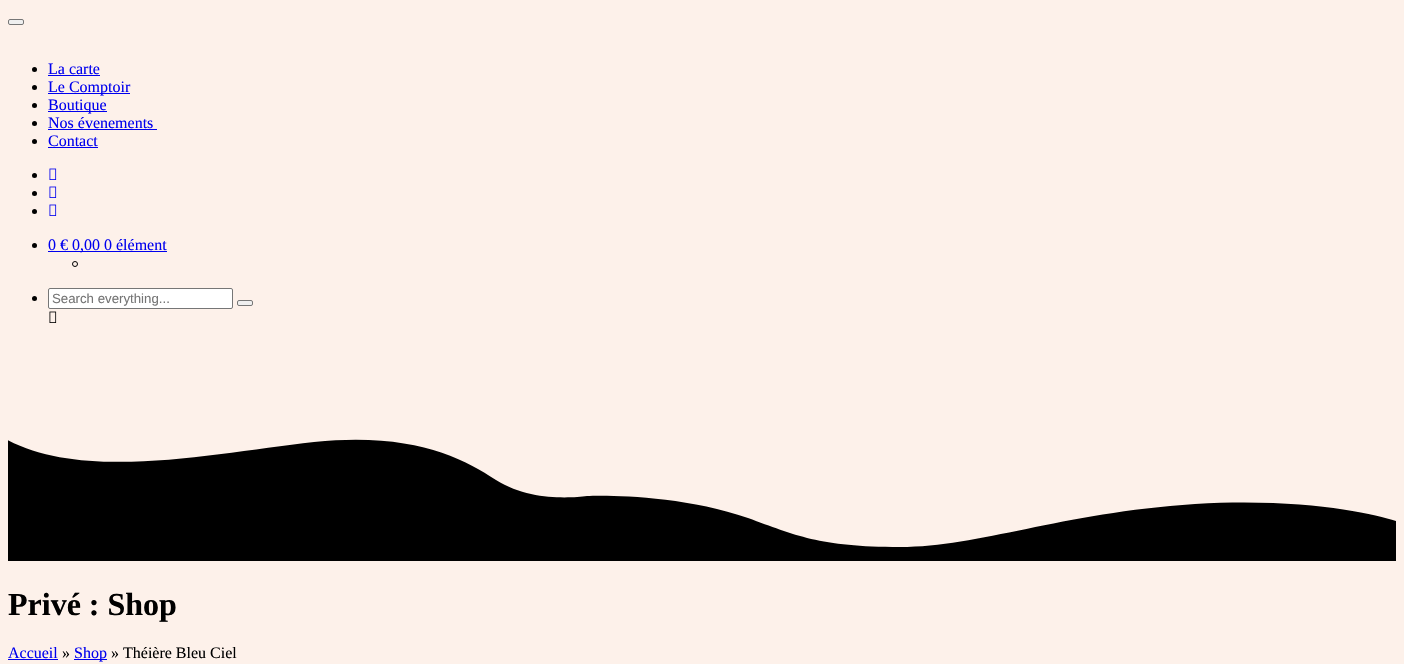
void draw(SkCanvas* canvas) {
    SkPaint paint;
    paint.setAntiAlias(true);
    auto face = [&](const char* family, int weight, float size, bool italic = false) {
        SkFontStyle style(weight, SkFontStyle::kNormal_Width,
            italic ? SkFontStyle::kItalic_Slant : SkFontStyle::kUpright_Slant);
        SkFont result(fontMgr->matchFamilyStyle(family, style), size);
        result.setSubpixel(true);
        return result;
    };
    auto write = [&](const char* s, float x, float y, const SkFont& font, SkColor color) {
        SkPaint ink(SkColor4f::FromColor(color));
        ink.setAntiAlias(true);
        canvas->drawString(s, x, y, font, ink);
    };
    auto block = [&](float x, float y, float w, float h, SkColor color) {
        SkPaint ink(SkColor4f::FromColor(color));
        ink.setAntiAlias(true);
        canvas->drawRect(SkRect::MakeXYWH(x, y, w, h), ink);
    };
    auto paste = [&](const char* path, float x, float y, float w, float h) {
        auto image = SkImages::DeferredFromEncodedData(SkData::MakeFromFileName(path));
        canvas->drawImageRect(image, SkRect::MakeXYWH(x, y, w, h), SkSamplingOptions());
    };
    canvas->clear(SkColorSetRGB(253, 241, 234));
    paint.setColor(SkColorSetRGB(239, 239, 239));
    canvas->drawRoundRect(SkRect::MakeXYWH(8.5f, 19.5f, 15, 5), 1.5f, 1.5f, paint);
    paint.setStyle(SkPaint::kStroke_Style);
    paint.setStrokeWidth(1);
    paint.setColor(SkColorSetRGB(118, 118, 118));
    canvas->drawRoundRect(SkRect::MakeXYWH(8.5f, 19.5f, 15, 5), 1.5f, 1.5f, paint);
    paint.setStyle(SkPaint::kFill_Style);
    paint.setColor(SK_ColorBLACK);
    canvas->drawCircle(34.5f, 69.5f, 2.5f, paint);
    auto kFont1 = face("Liberation Serif", 400, 16);
    write("La carte", 48, 74, kFont1, SkColorSetRGB(0, 0, 238));
    block(48, 75, 52, 1, SkColorSetRGB(0, 0, 238));
    canvas->drawCircle(34.5f, 87.5f, 2.5f, paint);
    block(48, 93, 82, 1, SkColorSetRGB(0, 0, 238));
    write("Le Comptoir", 48, 92, kFont1, SkColorSetRGB(0, 0, 238));
    canvas->drawCircle(34.5f, 105.5f, 2.5f, paint);
    block(48, 111, 59, 1, SkColorSetRGB(0, 0, 238));
    write("Boutique", 48, 110, kFont1, SkColorSetRGB(0, 0, 238));
    canvas->drawCircle(34.5f, 123.5f, 2.5f, paint);
    write("Nos évenements", 48, 128, kFont1, SkColorSetRGB(0, 0, 238));
    block(48, 129, 109, 1, SkColorSetRGB(0, 0, 238));
    canvas->drawCircle(34.5f, 141.5f, 2.5f, paint);
    write("Contact", 48, 146, kFont1, SkColorSetRGB(0, 0, 238));
    block(48, 147, 50, 1, SkColorSetRGB(0, 0, 238));
    canvas->drawCircle(34.5f, 175.5f, 2.5f, paint);
    paste("pic1.png", 49, 168, 8, 12);
    canvas->drawCircle(34.5f, 193.5f, 2.5f, paint);
    paste("pic1.png", 49, 186, 8, 12);
    canvas->drawCircle(34.5f, 211.5f, 2.5f, paint);
    paste("pic1.png", 49, 204, 8, 12);
    canvas->drawCircle(34.5f, 245.5f, 2.5f, paint);
    block(48, 251, 119, 1, SkColorSetRGB(0, 0, 238));
    write("0 € 0,00 0 élément", 48, 250, kFont1, SkColorSetRGB(0, 0, 238));
    paint.setStyle(SkPaint::kStroke_Style);
    canvas->drawCircle(75, 264, 2.5f, paint);
    paint.setStyle(SkPaint::kFill_Style);
    canvas->drawCircle(34.5f, 298.5f, 2.5f, paint);
    paint.setColor(SK_ColorWHITE);
    canvas->drawRoundRect(SkRect::MakeXYWH(48.5f, 288.5f, 184, 20), 1.5f, 1.5f, paint);
    paint.setStyle(SkPaint::kStroke_Style);
    paint.setColor(SkColorSetRGB(118, 118, 118));
    canvas->drawRoundRect(SkRect::MakeXYWH(48.5f, 288.5f, 184, 20), 1.5f, 1.5f, paint);
    auto kFont2 = face("Liberation Sans", 400, 13.25f);
    write("Search everything...", 52, 303, kFont2, SkColorSetRGB(117, 117, 117));
    paint.setStyle(SkPaint::kFill_Style);
    paint.setColor(SkColorSetRGB(239, 239, 239));
    canvas->drawRoundRect(SkRect::MakeXYWH(237.5f, 300.5f, 15, 5), 1.5f, 1.5f, paint);
    paint.setStyle(SkPaint::kStroke_Style);
    paint.setColor(SkColorSetRGB(118, 118, 118));
    canvas->drawRoundRect(SkRect::MakeXYWH(237.5f, 300.5f, 15, 5), 1.5f, 1.5f, paint);
    paste("pic2.png", 49, 311, 8, 12);
    canvas->save();
    canvas->clipRect(SkRect::MakeXYWH(8, 387, 1388, 174));
    paint.setStyle(SkPaint::kFill_Style);
    paint.setColor(SK_ColorBLACK);
    canvas->drawPath(SkPathBuilder().moveTo(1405, 569).lineTo(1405, 524).cubicTo(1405, 524, 1334, 496, 1195, 504).cubicTo(1059, 513, 980, 547, 900, 547).cubicTo(819, 547, 795, 535, 748, 518).cubicTo(683, 495, 604, 495, 587, 496).cubicTo(571, 498, 529, 501, 496, 480).cubicTo(462, 458, 413, 432, 314, 442).cubicTo(215, 453, 77, 484, -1, 435).lineTo(-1, 569).close().detach(), paint);
    canvas->restore();
    auto kFont3 = face("Liberation Serif", 700, 32);
    write("Privé : Shop", 8, 615, kFont3, SK_ColorBLACK);
    write("Accueil", 8, 658, kFont1, SkColorSetRGB(0, 0, 238));
    block(8, 659, 50, 1, SkColorSetRGB(0, 0, 238));
    write("»", 62, 658, kFont1, SK_ColorBLACK);
    block(74, 659, 33, 1, SkColorSetRGB(0, 0, 238));
    write("Shop", 74, 658, kFont1, SkColorSetRGB(0, 0, 238));
    write("» Théière Bleu Ciel", 111, 658, kFont1, SK_ColorBLACK);
}
